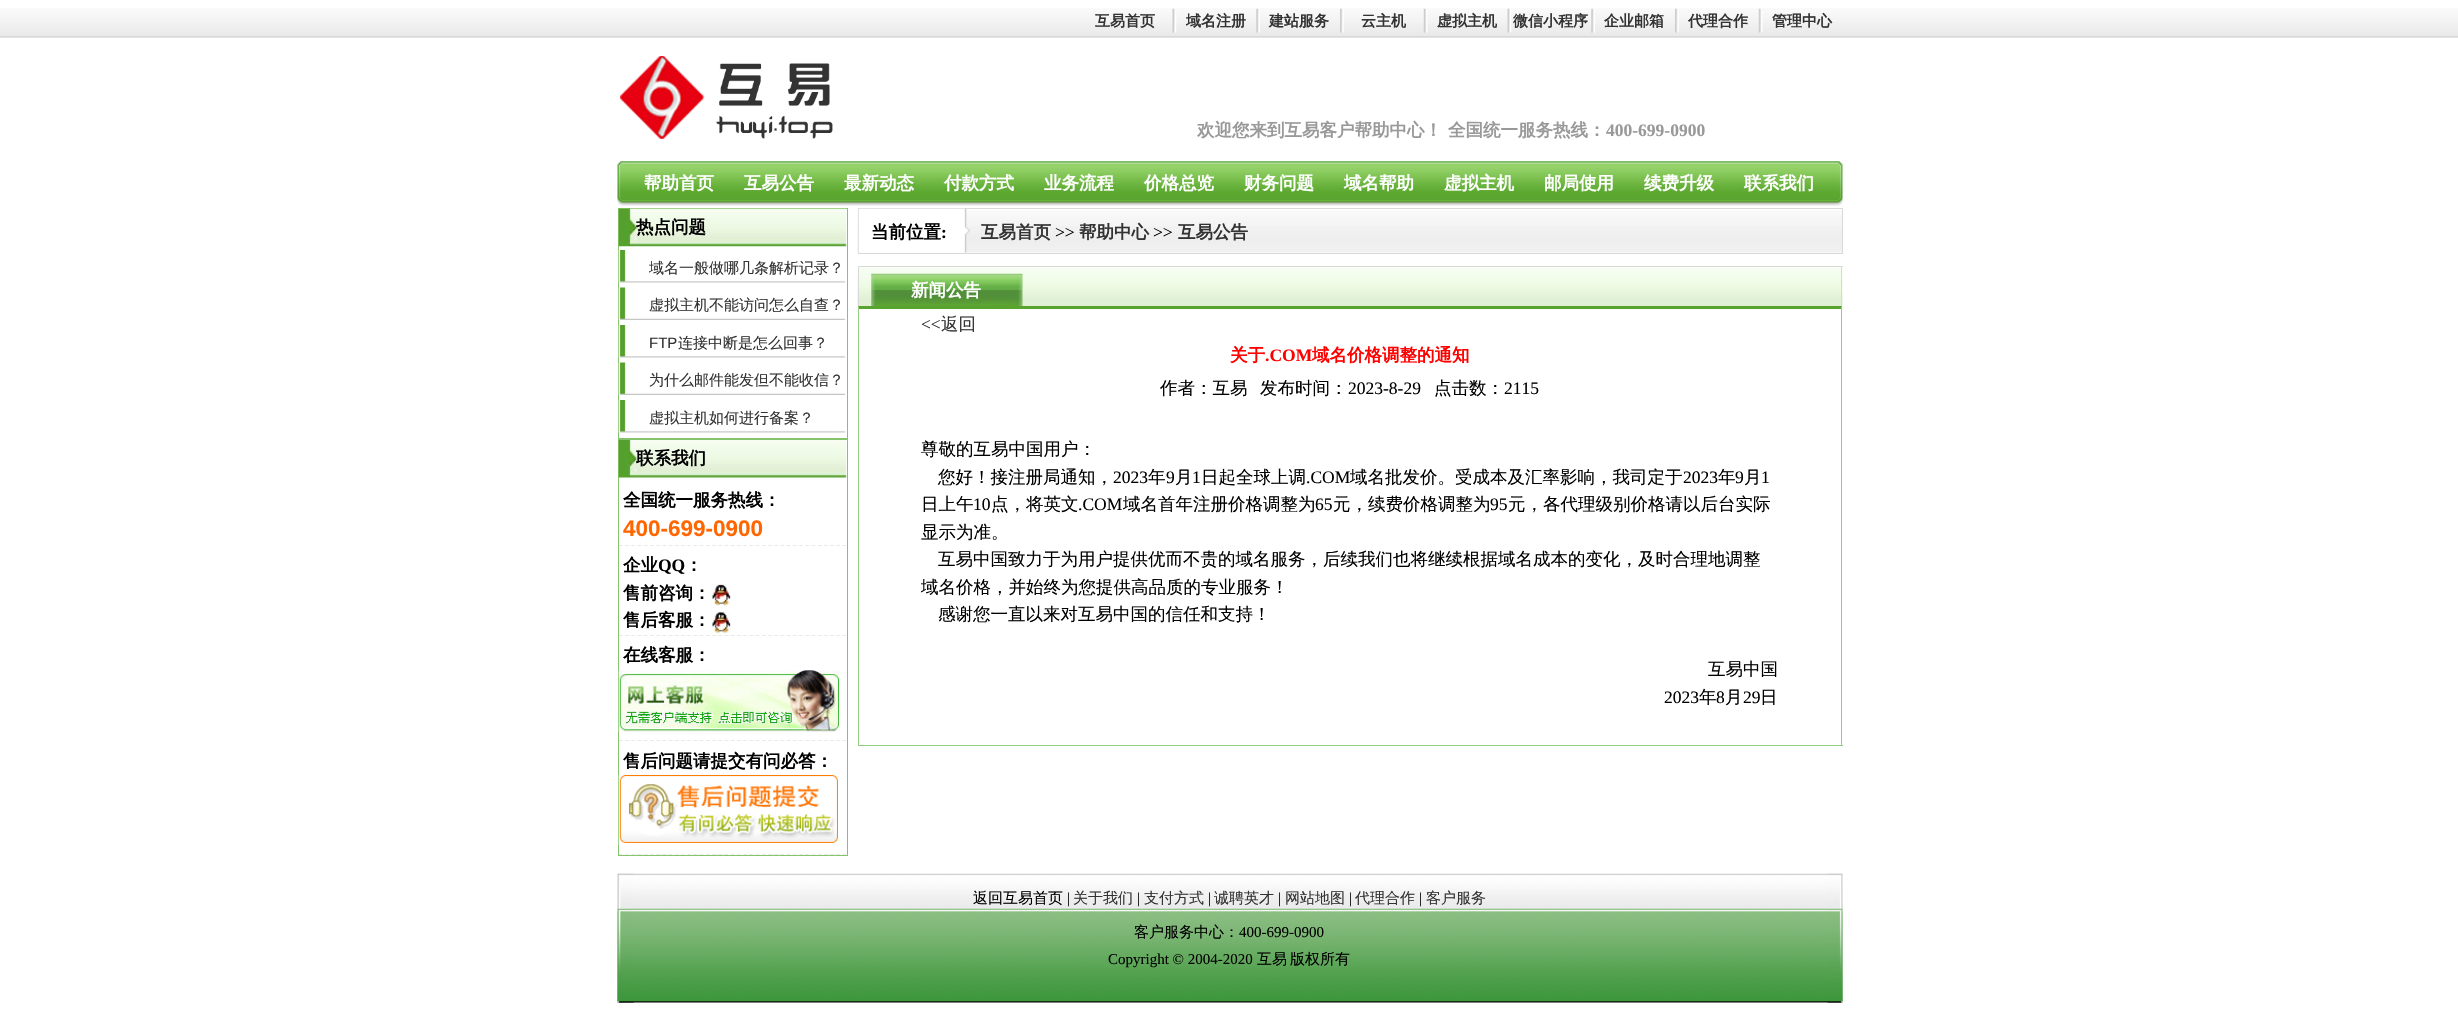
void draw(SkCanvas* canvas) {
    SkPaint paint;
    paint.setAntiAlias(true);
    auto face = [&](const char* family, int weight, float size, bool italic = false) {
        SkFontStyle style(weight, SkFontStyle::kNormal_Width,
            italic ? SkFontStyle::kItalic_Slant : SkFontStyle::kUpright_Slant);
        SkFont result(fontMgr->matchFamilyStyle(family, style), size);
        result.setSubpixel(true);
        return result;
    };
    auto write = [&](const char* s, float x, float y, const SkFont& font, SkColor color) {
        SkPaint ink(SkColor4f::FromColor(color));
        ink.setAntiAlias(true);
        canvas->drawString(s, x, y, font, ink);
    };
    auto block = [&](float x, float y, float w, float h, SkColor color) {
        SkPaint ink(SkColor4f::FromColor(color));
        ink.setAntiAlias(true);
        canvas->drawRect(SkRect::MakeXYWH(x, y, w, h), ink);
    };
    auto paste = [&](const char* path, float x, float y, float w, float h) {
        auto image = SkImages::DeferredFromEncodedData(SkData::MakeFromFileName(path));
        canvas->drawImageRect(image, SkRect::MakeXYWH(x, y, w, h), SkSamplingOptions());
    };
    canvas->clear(SK_ColorWHITE);
    paste("pic1.png", 0, 8, 2458, 30);
    auto kFont1 = face("WenQuanYi Zen Hei", 700, 15);
    write("互易首页", 1095, 26, kFont1, SkColorSetRGB(51, 51, 51));
    paste("pic2.png", 1172, 8, 5, 25);
    write("域名注册", 1186, 26, kFont1, SkColorSetRGB(51, 51, 51));
    paste("pic3.png", 1256, 8, 4, 25);
    write("建站服务", 1269, 26, kFont1, SkColorSetRGB(51, 51, 51));
    paste("pic4.png", 1340, 8, 4, 25);
    write("云主机", 1361, 26, kFont1, SkColorSetRGB(51, 51, 51));
    paste("pic5.png", 1423, 8, 5, 25);
    write("虚拟主机", 1437, 26, kFont1, SkColorSetRGB(51, 51, 51));
    paste("pic2.png", 1507, 8, 5, 25);
    write("微信小程序", 1513, 26, kFont1, SkColorSetRGB(51, 51, 51));
    paste("pic3.png", 1591, 8, 4, 25);
    write("企业邮箱", 1604, 26, kFont1, SkColorSetRGB(51, 51, 51));
    paste("pic4.png", 1675, 8, 4, 25);
    write("代理合作", 1688, 26, kFont1, SkColorSetRGB(51, 51, 51));
    paste("pic5.png", 1758, 8, 5, 25);
    write("管理中心", 1772, 26, kFont1, SkColorSetRGB(51, 51, 51));
    paste("pic6.png", 620, 56, 213, 83);
    auto kFont2 = face("WenQuanYi Zen Hei", 700, 17.5f);
    write("欢迎您来到互易客户帮助中心！", 1197, 136, kFont2, SkColorSetRGB(153, 153, 153));
    write("全国统一服务热线：", 1448, 136, kFont2, SkColorSetRGB(153, 153, 153));
    auto kFont3 = face("Liberation Serif", 700, 17.5f);
    write("400-699-0900", 1606, 136, kFont3, SkColorSetRGB(153, 153, 153));
    paste("pic7.png", 617, 161, 8, 45);
    paste("pic8.png", 625, 161, 1210, 45);
    write("帮助首页", 644, 189, kFont2, SK_ColorWHITE);
    write("互易公告", 744, 189, kFont2, SK_ColorWHITE);
    write("最新动态", 844, 189, kFont2, SK_ColorWHITE);
    write("付款方式", 944, 189, kFont2, SK_ColorWHITE);
    write("业务流程", 1044, 189, kFont2, SK_ColorWHITE);
    write("价格总览", 1144, 189, kFont2, SK_ColorWHITE);
    write("财务问题", 1244, 189, kFont2, SK_ColorWHITE);
    write("域名帮助", 1344, 189, kFont2, SK_ColorWHITE);
    write("虚拟主机", 1444, 189, kFont2, SK_ColorWHITE);
    write("邮局使用", 1544, 189, kFont2, SK_ColorWHITE);
    write("续费升级", 1644, 189, kFont2, SK_ColorWHITE);
    write("联系我们", 1744, 189, kFont2, SK_ColorWHITE);
    paste("pic9.png", 1835, 161, 8, 45);
    paint.setStyle(SkPaint::kStroke_Style);
    paint.setStrokeWidth(1);
    paint.setColor(SkColorSetRGB(133, 196, 107));
    canvas->drawRect(SkRect::MakeXYWH(618.5f, 208.5f, 229, 230), paint);
    paste("pic10.png", 618, 208, 229, 39);
    write("热点问题", 636, 233, kFont2, SK_ColorBLACK);
    paste("pic11.png", 618, 250, 228, 33);
    auto kFont4 = face("WenQuanYi Zen Hei", 500, 15);
    write("域名一般做哪几条解析记录？", 649, 273, kFont4, SkColorSetRGB(51, 51, 51));
    paste("pic12.png", 618, 287, 228, 33);
    write("虚拟主机不能访问怎么自查？", 649, 310, kFont4, SkColorSetRGB(51, 51, 51));
    paste("pic11.png", 618, 325, 228, 33);
    auto kFont5 = face("Liberation Sans", 400, 15);
    write("FTP", 649, 348, kFont5, SkColorSetRGB(51, 51, 51));
    write("连接中断是怎么回事？", 678, 348, kFont4, SkColorSetRGB(51, 51, 51));
    paste("pic13.png", 618, 362, 228, 33);
    write("为什么邮件能发但不能收信？", 649, 385, kFont4, SkColorSetRGB(51, 51, 51));
    paste("pic11.png", 618, 400, 228, 33);
    write("虚拟主机如何进行备案？", 649, 423, kFont4, SkColorSetRGB(51, 51, 51));
    canvas->drawRect(SkRect::MakeXYWH(618.5f, 439.5f, 229, 416), paint);
    paste("pic14.png", 618, 440, 229, 38);
    write("联系我们", 636, 464, kFont2, SK_ColorBLACK);
    paint.setStrokeWidth(1.2f);
    paint.setColor(SkColorSetRGB(233, 233, 233));
    paint.setPathEffect(SkDashPathEffect::Make({{3.75f, 2.46f}}, 0));
    canvas->drawPath(SkPathBuilder().moveTo(619, 545.5f).lineTo(846, 545.5f).detach(), paint);
    paint.setPathEffect(nullptr);
    write("全国统一服务热线：", 623, 506, kFont2, SK_ColorBLACK);
    auto kFont6 = face("Liberation Sans", 700, 22.5f);
    write("400-699-0900", 623, 536, kFont6, SkColorSetRGB(255, 102, 0));
    paint.setPathEffect(SkDashPathEffect::Make({{3.75f, 2.46f}}, 0));
    canvas->drawPath(SkPathBuilder().moveTo(619, 635.5f).lineTo(846, 635.5f).detach(), paint);
    paint.setPathEffect(nullptr);
    write("企业", 623, 571, kFont2, SK_ColorBLACK);
    write("QQ", 658, 571, kFont3, SK_ColorBLACK);
    write("：", 685, 571, kFont2, SK_ColorBLACK);
    write("售前咨询：", 623, 599, kFont2, SK_ColorBLACK);
    paste("pic15.png", 710, 584, 21, 22);
    write("售后客服：", 623, 626, kFont2, SK_ColorBLACK);
    paste("pic16.png", 710, 611, 21, 23);
    paint.setPathEffect(SkDashPathEffect::Make({{3.75f, 2.46f}}, 0));
    canvas->drawPath(SkPathBuilder().moveTo(619, 740.5f).lineTo(846, 740.5f).detach(), paint);
    paint.setPathEffect(nullptr);
    write("在线客服：", 623, 661, kFont2, SK_ColorBLACK);
    paste("pic17.png", 618, 670, 222, 62);
    paint.setPathEffect(SkDashPathEffect::Make({{3.75f, 2.46f}}, 0));
    canvas->drawPath(SkPathBuilder().moveTo(619, 854.5f).lineTo(846, 854.5f).detach(), paint);
    paint.setPathEffect(nullptr);
    write("售后问题请提交有问必答：", 623, 767, kFont2, SK_ColorBLACK);
    paste("pic18.png", 618, 775, 220, 70);
    paste("pic19.png", 857, 210, 985, 43);
    paint.setStrokeWidth(1);
    paint.setColor(SkColorSetRGB(217, 217, 217));
    canvas->drawRect(SkRect::MakeXYWH(858.5f, 208.5f, 984, 45), paint);
    paste("pic20.png", 858, 208, 112, 45);
    write("当前位置", 871, 238, kFont2, SK_ColorBLACK);
    write(":", 941, 238, kFont3, SK_ColorBLACK);
    write("互易首页", 981, 238, kFont2, SkColorSetRGB(51, 51, 51));
    auto kFont7 = face("Liberation Serif", 400, 17.5f);
    write(">>", 1055, 238, kFont7, SK_ColorBLACK);
    write("帮助中心", 1079, 238, kFont2, SkColorSetRGB(51, 51, 51));
    write(">>", 1153, 238, kFont7, SK_ColorBLACK);
    write("互易公告", 1178, 238, kFont2, SkColorSetRGB(51, 51, 51));
    paste("pic21.png", 857, 267, 986, 40);
    block(858, 266, 985, 1, SkColorSetRGB(217, 217, 217));
    block(1841, 266, 1, 40, SkColorSetRGB(217, 217, 217));
    block(858, 266, 1, 40, SkColorSetRGB(217, 217, 217));
    paste("pic22.png", 871, 273, 152, 33);
    write("新闻公告", 911, 296, kFont2, SK_ColorWHITE);
    paint.setStyle(SkPaint::kFill_Style);
    paint.setColor(SkColorSetRGB(89, 164, 47));
    canvas->drawPath(SkPathBuilder().moveTo(858, 306).lineTo(1842, 306).lineTo(1841, 309).lineTo(859, 309).close().detach(), paint);
    paint.setColor(SkColorSetRGB(146, 204, 124));
    canvas->drawPath(SkPathBuilder().moveTo(1842, 306).lineTo(1842, 746).lineTo(1841, 745).lineTo(1841, 309).close().detach(), paint);
    block(858, 745, 985, 1, SkColorSetRGB(146, 204, 124));
    canvas->drawPath(SkPathBuilder().moveTo(858, 746).lineTo(858, 306).lineTo(859, 309).lineTo(859, 745).close().detach(), paint);
    write("<<", 921, 330, kFont7, SkColorSetRGB(51, 51, 51));
    auto kFont8 = face("WenQuanYi Zen Hei", 500, 17.5f);
    write("返回", 941, 330, kFont8, SkColorSetRGB(51, 51, 51));
    write("关于", 1230, 361, kFont2, SkColorSetRGB(255, 0, 0));
    write(".COM", 1265, 361, kFont3, SkColorSetRGB(255, 0, 0));
    write("域名价格调整的通知", 1312, 361, kFont2, SkColorSetRGB(255, 0, 0));
    write("作者：互易", 1160, 394, kFont8, SK_ColorBLACK);
    write("发布时间：", 1260, 394, kFont8, SK_ColorBLACK);
    write("2023-8-29", 1348, 394, kFont7, SK_ColorBLACK);
    write("点击数：", 1434, 394, kFont8, SK_ColorBLACK);
    write("2115", 1504, 394, kFont7, SK_ColorBLACK);
    write("尊敬的互易中国用户：", 921, 455, kFont8, SK_ColorBLACK);
    write("您好！接注册局通知，", 938, 483, kFont8, SK_ColorBLACK);
    write("2023", 1113, 483, kFont7, SK_ColorBLACK);
    write("年", 1148, 483, kFont8, SK_ColorBLACK);
    write("9", 1166, 483, kFont7, SK_ColorBLACK);
    write("月", 1175, 483, kFont8, SK_ColorBLACK);
    write("1", 1192, 483, kFont7, SK_ColorBLACK);
    write("日起全球上调", 1201, 483, kFont8, SK_ColorBLACK);
    write(".COM", 1306, 483, kFont7, SK_ColorBLACK);
    write("域名批发价。受成本及汇率影响，我司定于", 1350, 483, kFont8, SK_ColorBLACK);
    write("2023", 1683, 483, kFont7, SK_ColorBLACK);
    write("年", 1718, 483, kFont8, SK_ColorBLACK);
    write("9", 1735, 483, kFont7, SK_ColorBLACK);
    write("月", 1744, 483, kFont8, SK_ColorBLACK);
    write("1", 1761, 483, kFont7, SK_ColorBLACK);
    write("日上午", 921, 510, kFont8, SK_ColorBLACK);
    write("10", 973, 510, kFont7, SK_ColorBLACK);
    write("点，将英文", 991, 510, kFont8, SK_ColorBLACK);
    write(".COM", 1078, 510, kFont7, SK_ColorBLACK);
    write("域名首年注册价格调整为", 1123, 510, kFont8, SK_ColorBLACK);
    write("65", 1315, 510, kFont7, SK_ColorBLACK);
    write("元，续费价格调整为", 1333, 510, kFont8, SK_ColorBLACK);
    write("95", 1490, 510, kFont7, SK_ColorBLACK);
    write("元，各代理级别价格请以后台实际", 1508, 510, kFont8, SK_ColorBLACK);
    write("显示为准。", 921, 538, kFont8, SK_ColorBLACK);
    write("互易中国致力于为用户提供优而不贵的域名服务，后续我们也将继续根据域名成本的变化，及时合理地调整", 938, 565, kFont8, SK_ColorBLACK);
    write("域名价格，并始终为您提供高品质的专业服务！", 921, 593, kFont8, SK_ColorBLACK);
    write("感谢您一直以来对互易中国的信任和支持！", 938, 620, kFont8, SK_ColorBLACK);
    write("互易中国", 1708, 675, kFont8, SK_ColorBLACK);
    write("2023", 1664, 703, kFont7, SK_ColorBLACK);
    write("年", 1699, 703, kFont8, SK_ColorBLACK);
    write("8", 1716, 703, kFont7, SK_ColorBLACK);
    write("月", 1725, 703, kFont8, SK_ColorBLACK);
    write("29", 1743, 703, kFont7, SK_ColorBLACK);
    write("日", 1760, 703, kFont8, SK_ColorBLACK);
    paste("pic23.png", 617, 873, 1226, 130);
    paste("pic24.png", 617, 873, 17, 130);
    paste("pic25.png", 1827, 873, 16, 130);
    write("返回互易首页", 973, 903, kFont4, SK_ColorBLACK);
    auto kFont9 = face("Liberation Serif", 400, 15);
    write("|", 1067, 903, kFont9, SK_ColorBLACK);
    write("关于我们", 1073, 903, kFont4, SkColorSetRGB(51, 51, 51));
    write("|", 1137, 903, kFont9, SK_ColorBLACK);
    write("支付方式", 1144, 903, kFont4, SkColorSetRGB(51, 51, 51));
    write("|", 1208, 903, kFont9, SK_ColorBLACK);
    write("诚聘英才", 1214, 903, kFont4, SkColorSetRGB(51, 51, 51));
    write("|", 1278, 903, kFont9, SK_ColorBLACK);
    write("网站地图", 1285, 903, kFont4, SkColorSetRGB(51, 51, 51));
    write("|", 1349, 903, kFont9, SK_ColorBLACK);
    write("代理合作", 1355, 903, kFont4, SkColorSetRGB(51, 51, 51));
    write("|", 1419, 903, kFont9, SK_ColorBLACK);
    write("客户服务", 1426, 903, kFont4, SkColorSetRGB(51, 51, 51));
    write("客户服务中心：", 1134, 937, kFont4, SK_ColorBLACK);
    write("400-699-0900", 1239, 937, kFont9, SK_ColorBLACK);
    write("Copyright © 2004-2020", 1108, 964, kFont9, SK_ColorBLACK);
    write("互易", 1257, 964, kFont4, SK_ColorBLACK);
    write("版权所有", 1290, 964, kFont4, SK_ColorBLACK);
}
